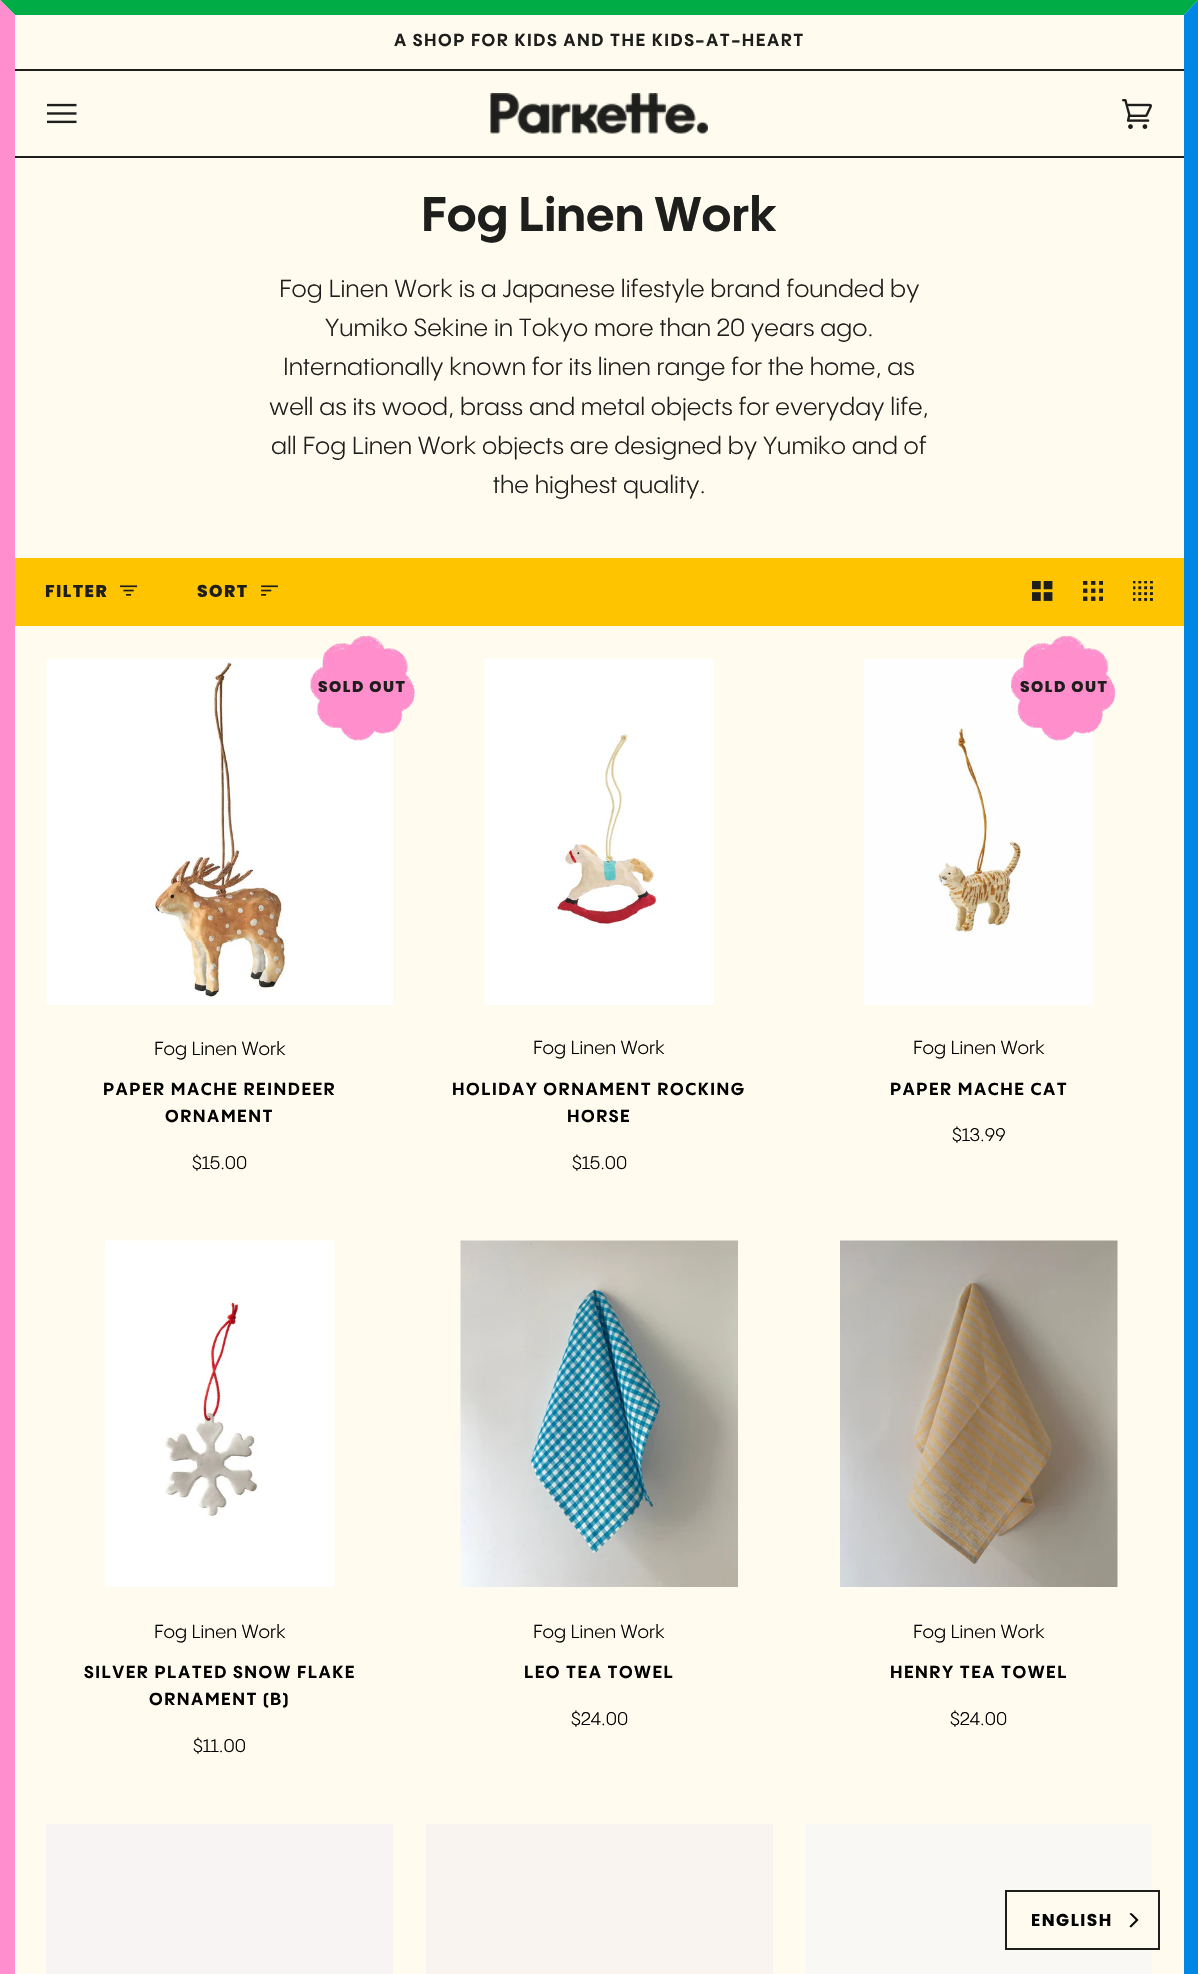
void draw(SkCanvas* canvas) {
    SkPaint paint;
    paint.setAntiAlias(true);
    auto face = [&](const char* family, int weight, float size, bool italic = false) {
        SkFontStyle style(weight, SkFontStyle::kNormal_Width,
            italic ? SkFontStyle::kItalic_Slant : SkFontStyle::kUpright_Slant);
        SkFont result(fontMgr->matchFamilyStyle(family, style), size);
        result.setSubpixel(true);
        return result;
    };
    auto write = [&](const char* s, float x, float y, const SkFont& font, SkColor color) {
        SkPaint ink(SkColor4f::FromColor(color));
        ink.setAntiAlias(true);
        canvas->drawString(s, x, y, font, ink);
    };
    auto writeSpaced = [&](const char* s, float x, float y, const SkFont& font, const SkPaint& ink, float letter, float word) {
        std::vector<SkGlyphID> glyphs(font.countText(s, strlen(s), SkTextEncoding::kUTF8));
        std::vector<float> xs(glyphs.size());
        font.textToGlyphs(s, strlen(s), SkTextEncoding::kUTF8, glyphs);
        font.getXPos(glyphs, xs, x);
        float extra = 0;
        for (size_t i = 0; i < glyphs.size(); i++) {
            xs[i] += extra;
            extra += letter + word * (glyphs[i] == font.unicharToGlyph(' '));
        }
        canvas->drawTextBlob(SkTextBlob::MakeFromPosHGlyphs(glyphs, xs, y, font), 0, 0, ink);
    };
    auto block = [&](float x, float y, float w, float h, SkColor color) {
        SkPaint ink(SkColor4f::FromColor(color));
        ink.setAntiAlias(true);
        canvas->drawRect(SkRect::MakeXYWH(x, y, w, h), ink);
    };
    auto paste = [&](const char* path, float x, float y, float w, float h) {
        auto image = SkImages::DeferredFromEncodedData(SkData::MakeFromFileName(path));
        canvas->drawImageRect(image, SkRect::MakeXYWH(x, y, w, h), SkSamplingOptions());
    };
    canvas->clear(SK_ColorWHITE);
    paint.setColor(SkColorSetRGB(0, 172, 69));
    canvas->drawPath(SkPathBuilder().moveTo(0, 0).lineTo(1198, 0).lineTo(1184, 15).lineTo(15, 15).close().detach(), paint);
    paint.setColor(SkColorSetRGB(0, 134, 228));
    canvas->drawPath(SkPathBuilder().moveTo(1198, 0).lineTo(1198, 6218).lineTo(1184, 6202).lineTo(1184, 15).close().detach(), paint);
    paint.setColor(SkColorSetRGB(255, 142, 206));
    canvas->drawPath(SkPathBuilder().moveTo(0, 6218).lineTo(0, 0).lineTo(15, 15).lineTo(15, 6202).close().detach(), paint);
    block(15, 15, 1169, 54, SkColorSetRGB(255, 252, 239));
    auto kFont1 = face("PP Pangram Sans", 700, 17.1f);
    paint.setColor(SkColorSetRGB(30, 30, 28));
    writeSpaced("A SHOP FOR KIDS AND THE KIDS-AT-HEART", 394, 46, kFont1, paint, 1.5f, 0);
    block(15, 71, 1169, 85, SkColorSetRGB(255, 252, 239));
    block(15, 69, 1169, 2, SkColorSetRGB(30, 30, 28));
    block(15, 156, 1169, 2, SkColorSetRGB(30, 30, 28));
    paste("pic1.png", 47, 103, 30, 21);
    paste("pic2.png", 490, 93, 218, 41);
    paste("pic3.png", 1122, 99, 30, 30);
    block(15, 158, 1169, 1816, SkColorSetRGB(255, 252, 239));
    auto kFont2 = face("PP Pangram Sans", 700, 48);
    write("Fog Linen Work", 421, 231, kFont2, SkColorSetRGB(30, 30, 28));
    auto kFont3 = face("PP Pangram Sans", 400, 24.4f);
    write("Fog Linen Work is a Japanese lifestyle brand founded by", 279, 297, kFont3, SkColorSetRGB(30, 30, 28));
    write("Yumiko Sekine in Tokyo more than 20 years ago.", 325, 336, kFont3, SkColorSetRGB(30, 30, 28));
    write("Internationally known for its linen range for the home, as", 283, 375, kFont3, SkColorSetRGB(30, 30, 28));
    write("well as its wood, brass and metal objects for everyday life,", 269, 415, kFont3, SkColorSetRGB(30, 30, 28));
    write("all Fog Linen Work objects are designed by Yumiko and of", 271, 454, kFont3, SkColorSetRGB(30, 30, 28));
    write("the highest quality.", 493, 493, kFont3, SkColorSetRGB(30, 30, 28));
    block(15, 558, 1169, 68, SkColorSetRGB(255, 196, 0));
    auto kFont4 = face("Poppins", 800, 17.1f);
    writeSpaced("FILTER", 45, 597, kFont4, paint, 1.5f, 0);
    paste("pic4.png", 120, 585, 18, 11);
    writeSpaced("SORT", 197, 597, kFont4, paint, 1.5f, 0);
    paste("pic5.png", 261, 585, 17, 11);
    paste("pic6.png", 1032, 581, 21, 20);
    paste("pic7.png", 1083, 581, 20, 20);
    paste("pic8.png", 1133, 581, 20, 20);
    paste("pic9.png", 46, 658, 347, 347);
    paste("pic10.png", 310, 636, 106, 105);
    auto kFont5 = face("Poppins", 800, 15.5f);
    writeSpaced("SOLD OUT", 318, 692, kFont5, paint, 1.5f, 0);
    auto kFont6 = face("PP Pangram Sans", 400, 18.5f);
    write("Fog Linen Work", 154, 1055, kFont6, SK_ColorBLACK);
    paint.setColor(SK_ColorBLACK);
    writeSpaced("PAPER MACHE REINDEER", 103, 1095, kFont1, paint, 1.5f, 0);
    writeSpaced("ORNAMENT", 165, 1122, kFont1, paint, 1.5f, 0);
    auto kFont7 = face("PP Pangram Sans", 400, 18);
    write("$15.00", 192, 1169, kFont7, SK_ColorBLACK);
    paste("pic11.png", 484, 658, 230, 347);
    write("Fog Linen Work", 533, 1054, kFont6, SK_ColorBLACK);
    writeSpaced("HOLIDAY ORNAMENT ROCKING", 452, 1095, kFont1, paint, 1.5f, 0);
    writeSpaced("HORSE", 567, 1122, kFont1, paint, 1.5f, 0);
    write("$15.00", 572, 1169, kFont7, SK_ColorBLACK);
    paste("pic12.png", 864, 658, 230, 347);
    paste("pic13.png", 1011, 636, 105, 105);
    paint.setColor(SkColorSetRGB(30, 30, 28));
    writeSpaced("SOLD OUT", 1020, 692, kFont5, paint, 1.5f, 0);
    write("Fog Linen Work", 913, 1054, kFont6, SK_ColorBLACK);
    paint.setColor(SK_ColorBLACK);
    writeSpaced("PAPER MACHE CAT", 890, 1095, kFont1, paint, 1.5f, 0);
    write("$13.99", 952, 1141, kFont7, SK_ColorBLACK);
    paste("pic14.png", 105, 1240, 230, 347);
    write("Fog Linen Work", 154, 1638, kFont6, SK_ColorBLACK);
    writeSpaced("SILVER PLATED SNOW FLAKE", 84, 1678, kFont1, paint, 1.5f, 0);
    writeSpaced("ORNAMENT (B)", 149, 1705, kFont1, paint, 1.5f, 0);
    write("$11.00", 193, 1752, kFont7, SK_ColorBLACK);
    paste("pic15.png", 460, 1240, 278, 347);
    write("Fog Linen Work", 533, 1638, kFont6, SK_ColorBLACK);
    writeSpaced("LEO TEA TOWEL", 524, 1678, kFont1, paint, 1.5f, 0);
    write("$24.00", 571, 1725, kFont7, SK_ColorBLACK);
    paste("pic16.png", 840, 1240, 278, 347);
    write("Fog Linen Work", 913, 1638, kFont6, SK_ColorBLACK);
    writeSpaced("HENRY TEA TOWEL", 890, 1678, kFont1, paint, 1.5f, 0);
    write("$24.00", 950, 1725, kFont7, SK_ColorBLACK);
    block(46, 1824, 347, 150, SkColorSetRGB(249, 244, 244));
    block(426, 1824, 347, 150, SkColorSetRGB(250, 244, 240));
    block(806, 1824, 346, 150, SkColorSetRGB(250, 248, 244));
    block(1007, 1892, 145, 56, SkColorSetRGB(255, 252, 239));
    paint.setStyle(SkPaint::kStroke_Style);
    paint.setStrokeWidth(2);
    paint.setColor(SkColorSetRGB(30, 30, 28));
    canvas->drawRect(SkRect::MakeXYWH(1006, 1891, 153, 58), paint);
    auto kFont8 = face("Poppins", 700, 17.1f);
    paint.setStyle(SkPaint::kFill_Style);
    paint.setColor(SK_ColorBLACK);
    writeSpaced("ENGLISH", 1031, 1926, kFont8, paint, 1.5f, 0);
    paste("pic17.png", 1129, 1913, 10, 15);
}
